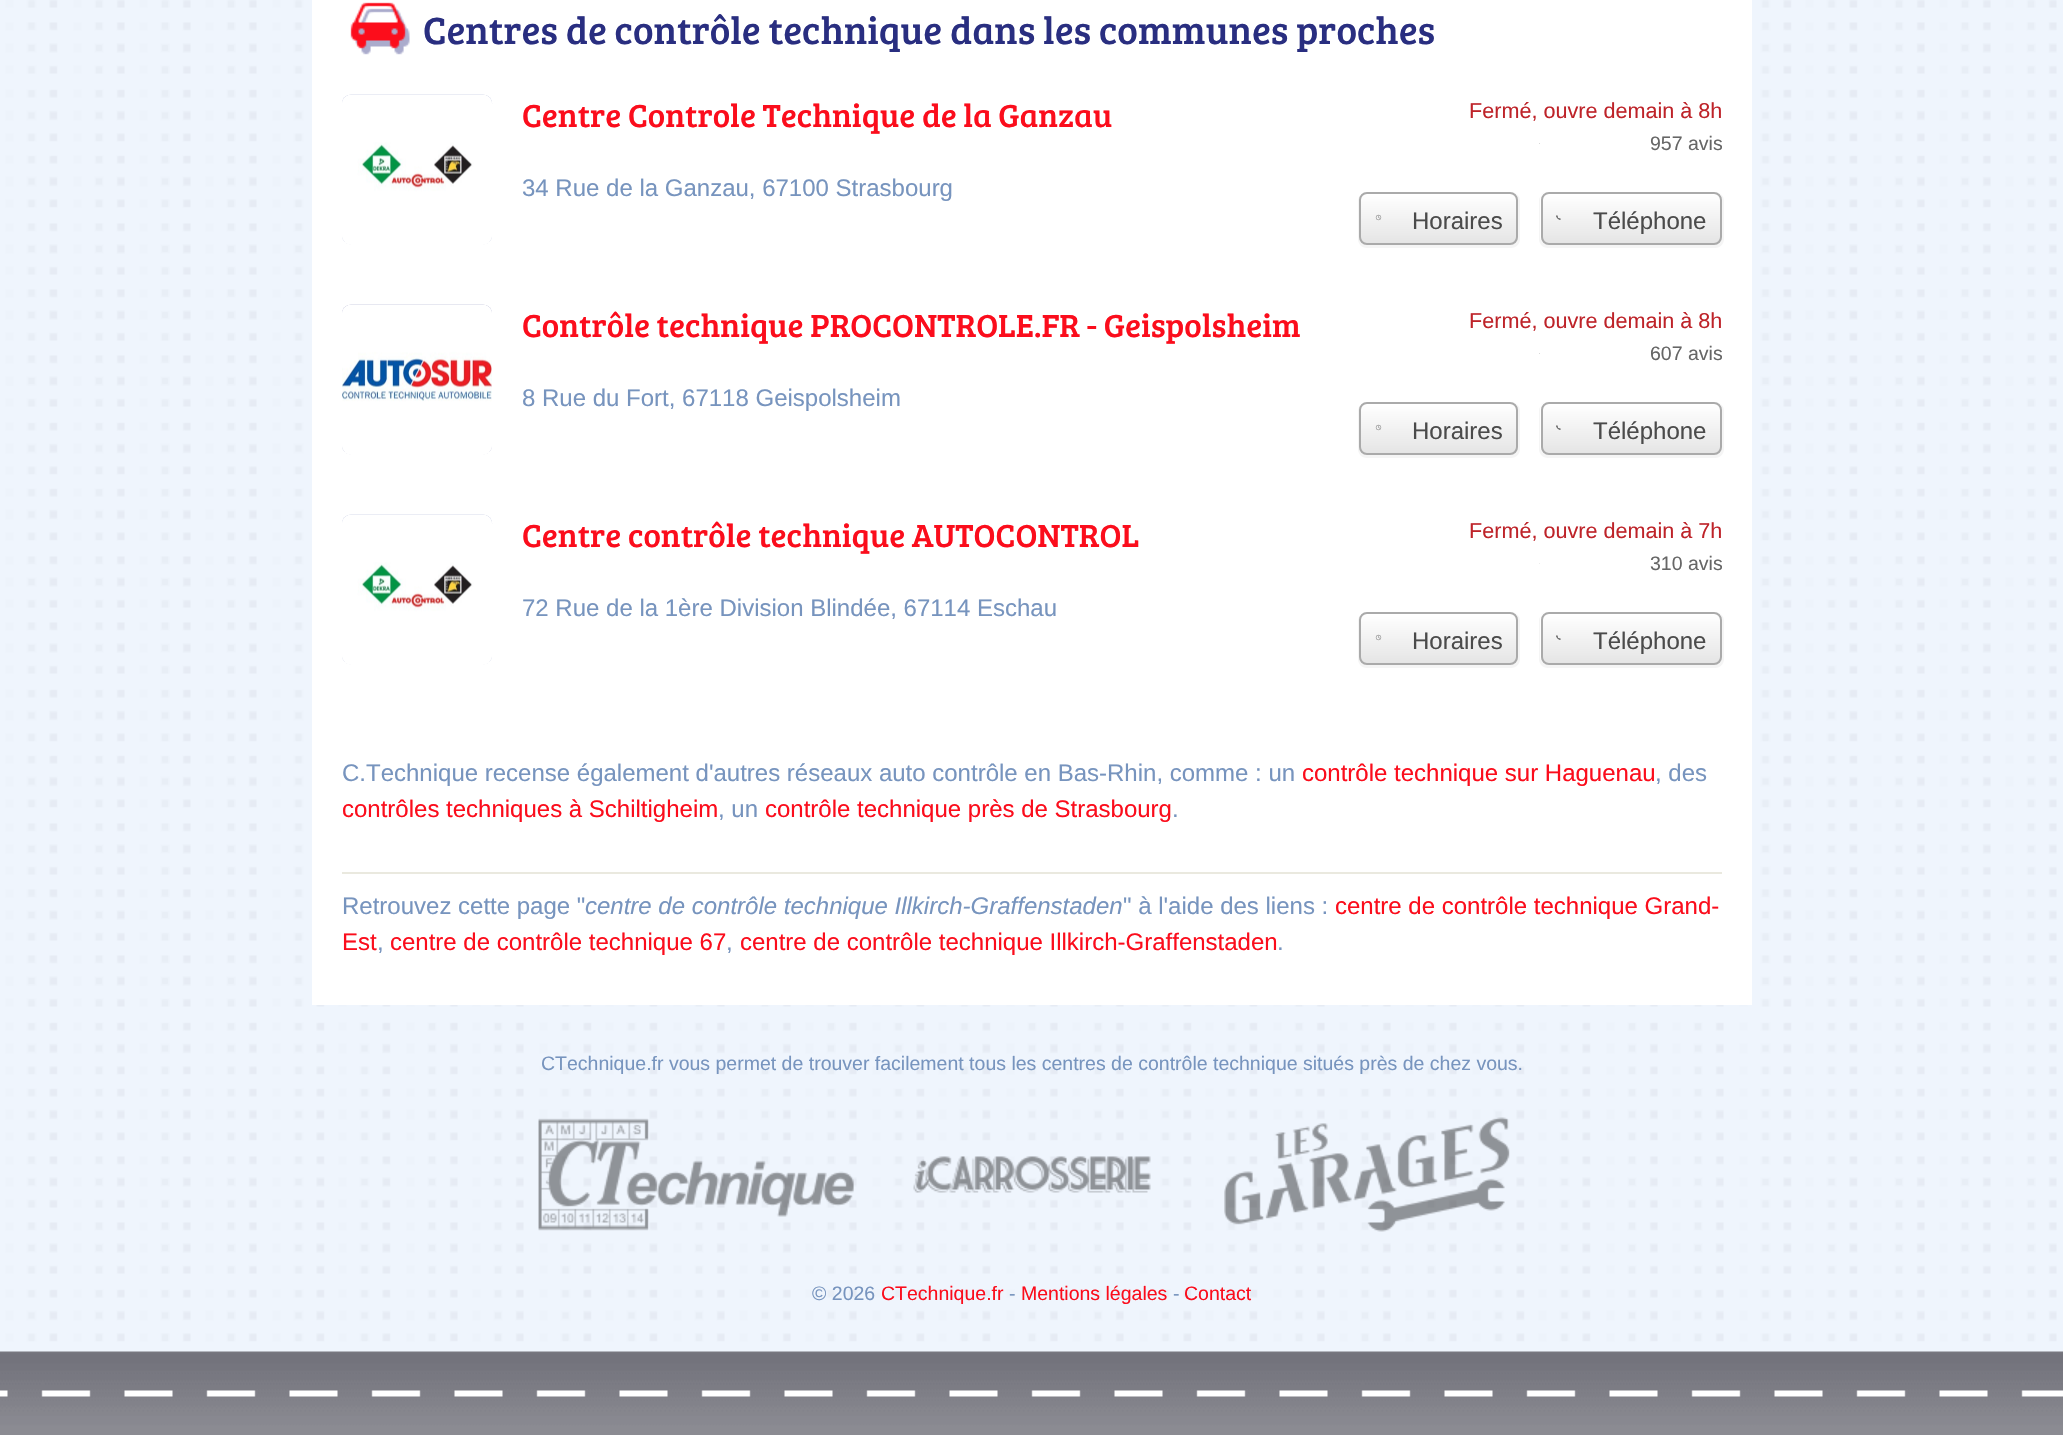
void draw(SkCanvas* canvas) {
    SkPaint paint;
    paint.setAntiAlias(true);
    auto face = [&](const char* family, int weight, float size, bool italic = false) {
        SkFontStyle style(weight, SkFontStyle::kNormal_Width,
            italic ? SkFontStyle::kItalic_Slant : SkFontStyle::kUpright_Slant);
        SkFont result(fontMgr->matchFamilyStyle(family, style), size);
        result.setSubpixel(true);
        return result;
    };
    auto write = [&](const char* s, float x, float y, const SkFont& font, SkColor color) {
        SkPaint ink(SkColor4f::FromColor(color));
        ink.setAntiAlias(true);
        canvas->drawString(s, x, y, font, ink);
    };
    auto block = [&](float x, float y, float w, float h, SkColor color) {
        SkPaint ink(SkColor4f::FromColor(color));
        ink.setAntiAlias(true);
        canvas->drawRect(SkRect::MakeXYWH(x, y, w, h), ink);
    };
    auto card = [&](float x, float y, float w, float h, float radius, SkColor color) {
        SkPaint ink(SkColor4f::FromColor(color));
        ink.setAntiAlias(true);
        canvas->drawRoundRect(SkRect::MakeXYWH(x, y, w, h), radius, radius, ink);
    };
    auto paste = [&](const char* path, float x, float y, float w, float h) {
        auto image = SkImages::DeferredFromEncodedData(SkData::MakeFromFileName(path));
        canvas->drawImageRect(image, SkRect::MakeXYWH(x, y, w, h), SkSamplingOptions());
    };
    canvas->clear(SK_ColorWHITE);
    paste("pic1.png", 0, 0, 2063, 1354);
    block(312, 0, 1440, 1005, SK_ColorWHITE);
    paste("pic2.png", 350, 2, 60, 53);
    auto kFont1 = face("Bree Serif", 400, 39);
    write("Centres de contrôle technique dans les communes proches", 423, 44, kFont1, SkColorSetRGB(41, 46, 128));
    paste("pic3.png", 342, 94, 151, 151);
    card(342, 95, 150, 150, 9, SK_ColorWHITE);
    paste("pic4.png", 342, 94, 150, 145);
    auto kFont2 = face("Bree Serif", 400, 33);
    write("Centre Controle Technique de la Ganzau", 522, 127, kFont2, SkColorSetRGB(251, 13, 28));
    auto kFont3 = face("Liberation Sans", 400, 21.6f);
    write("Fermé, ouvre demain à 8h", 1469, 118, kFont3, SkColorSetRGB(190, 35, 41));
    block(1539, 143, 1, 1, SkColorSetRGB(217, 217, 217));
    auto kFont4 = face("Liberation Sans", 400, 19.5f);
    write("957 avis", 1650, 150, kFont4, SkColorSetRGB(102, 102, 102));
    auto kFont5 = face("Liberation Sans", 400, 24);
    write("34 Rue de la Ganzau, 67100 Strasbourg", 522, 196, kFont5, SkColorSetRGB(119, 148, 190));
    paint.setColor(SkColorSetRGB(245, 245, 245));
    canvas->drawPath(SkPathBuilder().moveTo(1520, 201).cubicTo(1520, 196, 1516, 192, 1511, 192).cubicTo(1515, 192, 1518, 195, 1518, 199).lineTo(1518, 237).cubicTo(1518, 241, 1515, 244, 1511, 244).lineTo(1366, 244).cubicTo(1362, 244, 1359, 241, 1359, 237).lineTo(1359, 199).cubicTo(1359, 197, 1360, 196, 1361, 195).cubicTo(1359, 196, 1358, 199, 1358, 201).lineTo(1358, 239).cubicTo(1358, 244, 1362, 248, 1367, 248).lineTo(1511, 248).cubicTo(1516, 248, 1520, 244, 1520, 239).close().detach(), paint);
    canvas->save();
    canvas->clipPath(SkPathBuilder().moveTo(1367, 192).lineTo(1510, 192).cubicTo(1514.5f, 192, 1518, 195.5f, 1518, 200).lineTo(1518, 237).cubicTo(1518, 241.5f, 1514.5f, 245, 1510, 245).lineTo(1367, 245).cubicTo(1362.5f, 245, 1359, 241.5f, 1359, 237).lineTo(1359, 200).cubicTo(1359, 195.5f, 1362.5f, 192, 1367, 192).close().detach(), true);
    {
        const SkColor colors[] = {SK_ColorWHITE, SkColorSetRGB(229, 229, 229)};
        const float stops[] = {0, 1};
        const SkPoint ends[] = {{1439, 194}, {1439, 243}};
        paint.setShader(SkGradientShader::MakeLinear(ends, colors, stops, 2, SkTileMode::kClamp));
        paint.setAlpha(255);
    }
    canvas->drawRect(SkRect::MakeXYWH(1359, 194, 159, 49), paint);
    canvas->restore();
    paint.setStyle(SkPaint::kStroke_Style);
    paint.setStrokeWidth(2);
    paint.setShader(nullptr);
    paint.setColor(SkColorSetRGB(170, 170, 170));
    canvas->drawRoundRect(SkRect::MakeXYWH(1360, 193, 157, 51), 7, 7, paint);
    paste("pic5.png", 1375, 214, 7, 7);
    write("Horaires", 1412, 229, kFont5, SkColorSetRGB(75, 75, 75));
    paint.setStyle(SkPaint::kFill_Style);
    paint.setColor(SkColorSetRGB(245, 245, 245));
    canvas->drawPath(SkPathBuilder().moveTo(1724, 201).cubicTo(1724, 196, 1720, 192, 1715, 192).cubicTo(1719, 192, 1722, 195, 1722, 199).lineTo(1722, 237).cubicTo(1722, 241, 1719, 244, 1715, 244).lineTo(1548, 244).cubicTo(1544, 244, 1540, 241, 1540, 237).lineTo(1540, 199).cubicTo(1540, 196, 1542, 193, 1545, 192).cubicTo(1542, 194, 1539, 197, 1539, 201).lineTo(1539, 239).cubicTo(1539, 244, 1543, 248, 1548, 248).lineTo(1715, 248).cubicTo(1720, 248, 1724, 244, 1724, 239).close().detach(), paint);
    canvas->save();
    canvas->clipPath(SkPathBuilder().moveTo(1549, 192).lineTo(1714, 192).cubicTo(1718.5f, 192, 1722, 195.5f, 1722, 200).lineTo(1722, 237).cubicTo(1722, 241.5f, 1718.5f, 245, 1714, 245).lineTo(1549, 245).cubicTo(1544.5f, 245, 1541, 241.5f, 1541, 237).lineTo(1541, 200).cubicTo(1541, 195.5f, 1544.5f, 192, 1549, 192).close().detach(), true);
    {
        const SkColor colors[] = {SK_ColorWHITE, SkColorSetRGB(229, 229, 229)};
        const float stops[] = {0, 1};
        const SkPoint ends[] = {{1631, 194}, {1631, 243}};
        paint.setShader(SkGradientShader::MakeLinear(ends, colors, stops, 2, SkTileMode::kClamp));
        paint.setAlpha(255);
    }
    canvas->drawRect(SkRect::MakeXYWH(1541, 194, 181, 49), paint);
    canvas->restore();
    paint.setStyle(SkPaint::kStroke_Style);
    paint.setShader(nullptr);
    paint.setColor(SkColorSetRGB(170, 170, 170));
    canvas->drawRoundRect(SkRect::MakeXYWH(1542, 193, 179, 51), 7, 7, paint);
    paste("pic6.png", 1556, 215, 5, 5);
    write("Téléphone", 1593, 229, kFont5, SkColorSetRGB(75, 75, 75));
    paste("pic7.png", 342, 304, 150, 151);
    card(342, 305, 150, 150, 9, SK_ColorWHITE);
    paste("pic8.png", 342, 304, 150, 145);
    write("Contrôle technique PROCONTROLE.FR - Geispolsheim", 522, 337, kFont2, SkColorSetRGB(251, 13, 28));
    write("Fermé, ouvre demain à 8h", 1469, 328, kFont3, SkColorSetRGB(190, 35, 41));
    block(1539, 353, 1, 1, SkColorSetRGB(217, 217, 217));
    write("607 avis", 1650, 360, kFont4, SkColorSetRGB(102, 102, 102));
    write("8 Rue du Fort, 67118 Geispolsheim", 522, 406, kFont5, SkColorSetRGB(119, 148, 190));
    paint.setStyle(SkPaint::kFill_Style);
    paint.setColor(SkColorSetRGB(245, 245, 245));
    canvas->drawPath(SkPathBuilder().moveTo(1520, 411).cubicTo(1520, 406, 1516, 402, 1511, 402).cubicTo(1515, 402, 1518, 405, 1518, 409).lineTo(1518, 447).cubicTo(1518, 451, 1515, 454, 1511, 454).lineTo(1366, 454).cubicTo(1362, 454, 1359, 451, 1359, 447).lineTo(1359, 409).cubicTo(1359, 407, 1360, 406, 1361, 405).cubicTo(1359, 406, 1358, 409, 1358, 411).lineTo(1358, 449).cubicTo(1358, 454, 1362, 458, 1367, 458).lineTo(1511, 458).cubicTo(1516, 458, 1520, 454, 1520, 449).close().detach(), paint);
    canvas->save();
    canvas->clipPath(SkPathBuilder().moveTo(1367, 402).lineTo(1510, 402).cubicTo(1514.5f, 402, 1518, 405.5f, 1518, 410).lineTo(1518, 447).cubicTo(1518, 451.5f, 1514.5f, 455, 1510, 455).lineTo(1367, 455).cubicTo(1362.5f, 455, 1359, 451.5f, 1359, 447).lineTo(1359, 410).cubicTo(1359, 405.5f, 1362.5f, 402, 1367, 402).close().detach(), true);
    {
        const SkColor colors[] = {SK_ColorWHITE, SkColorSetRGB(229, 229, 229)};
        const float stops[] = {0, 1};
        const SkPoint ends[] = {{1439, 404}, {1439, 453}};
        paint.setShader(SkGradientShader::MakeLinear(ends, colors, stops, 2, SkTileMode::kClamp));
        paint.setAlpha(255);
    }
    canvas->drawRect(SkRect::MakeXYWH(1359, 404, 159, 49), paint);
    canvas->restore();
    paint.setStyle(SkPaint::kStroke_Style);
    paint.setShader(nullptr);
    paint.setColor(SkColorSetRGB(170, 170, 170));
    canvas->drawRoundRect(SkRect::MakeXYWH(1360, 403, 157, 51), 7, 7, paint);
    paste("pic5.png", 1375, 424, 7, 7);
    write("Horaires", 1412, 439, kFont5, SkColorSetRGB(75, 75, 75));
    paint.setStyle(SkPaint::kFill_Style);
    paint.setColor(SkColorSetRGB(245, 245, 245));
    canvas->drawPath(SkPathBuilder().moveTo(1724, 411).cubicTo(1724, 406, 1720, 402, 1715, 402).cubicTo(1719, 402, 1722, 405, 1722, 409).lineTo(1722, 447).cubicTo(1722, 451, 1719, 454, 1715, 454).lineTo(1548, 454).cubicTo(1544, 454, 1540, 451, 1540, 447).lineTo(1540, 409).cubicTo(1540, 406, 1542, 403, 1545, 402).cubicTo(1542, 404, 1539, 407, 1539, 411).lineTo(1539, 449).cubicTo(1539, 454, 1543, 458, 1548, 458).lineTo(1715, 458).cubicTo(1720, 458, 1724, 454, 1724, 449).close().detach(), paint);
    canvas->save();
    canvas->clipPath(SkPathBuilder().moveTo(1549, 402).lineTo(1714, 402).cubicTo(1718.5f, 402, 1722, 405.5f, 1722, 410).lineTo(1722, 447).cubicTo(1722, 451.5f, 1718.5f, 455, 1714, 455).lineTo(1549, 455).cubicTo(1544.5f, 455, 1541, 451.5f, 1541, 447).lineTo(1541, 410).cubicTo(1541, 405.5f, 1544.5f, 402, 1549, 402).close().detach(), true);
    {
        const SkColor colors[] = {SK_ColorWHITE, SkColorSetRGB(229, 229, 229)};
        const float stops[] = {0, 1};
        const SkPoint ends[] = {{1631, 404}, {1631, 453}};
        paint.setShader(SkGradientShader::MakeLinear(ends, colors, stops, 2, SkTileMode::kClamp));
        paint.setAlpha(255);
    }
    canvas->drawRect(SkRect::MakeXYWH(1541, 404, 181, 49), paint);
    canvas->restore();
    paint.setStyle(SkPaint::kStroke_Style);
    paint.setShader(nullptr);
    paint.setColor(SkColorSetRGB(170, 170, 170));
    canvas->drawRoundRect(SkRect::MakeXYWH(1542, 403, 179, 51), 7, 7, paint);
    paste("pic6.png", 1556, 425, 5, 5);
    write("Téléphone", 1593, 439, kFont5, SkColorSetRGB(75, 75, 75));
    paste("pic9.png", 342, 514, 151, 151);
    card(342, 515, 150, 150, 9, SK_ColorWHITE);
    paste("pic10.png", 342, 514, 150, 145);
    write("Centre contrôle technique AUTOCONTROL", 522, 547, kFont2, SkColorSetRGB(251, 13, 28));
    write("Fermé, ouvre demain à 7h", 1469, 538, kFont3, SkColorSetRGB(190, 35, 41));
    block(1539, 563, 1, 1, SkColorSetRGB(237, 237, 237));
    write("310 avis", 1650, 570, kFont4, SkColorSetRGB(102, 102, 102));
    write("72 Rue de la 1ère Division Blindée, 67114 Eschau", 522, 616, kFont5, SkColorSetRGB(119, 148, 190));
    paint.setStyle(SkPaint::kFill_Style);
    paint.setColor(SkColorSetRGB(245, 245, 245));
    canvas->drawPath(SkPathBuilder().moveTo(1520, 621).cubicTo(1520, 616, 1516, 612, 1511, 612).cubicTo(1515, 612, 1518, 615, 1518, 619).lineTo(1518, 657).cubicTo(1518, 661, 1515, 664, 1511, 664).lineTo(1366, 664).cubicTo(1362, 664, 1359, 661, 1359, 657).lineTo(1359, 619).cubicTo(1359, 617, 1360, 616, 1361, 615).cubicTo(1359, 616, 1358, 619, 1358, 621).lineTo(1358, 659).cubicTo(1358, 664, 1362, 668, 1367, 668).lineTo(1511, 668).cubicTo(1516, 668, 1520, 664, 1520, 659).close().detach(), paint);
    canvas->save();
    canvas->clipPath(SkPathBuilder().moveTo(1367, 612).lineTo(1510, 612).cubicTo(1514.5f, 612, 1518, 615.5f, 1518, 620).lineTo(1518, 657).cubicTo(1518, 661.5f, 1514.5f, 665, 1510, 665).lineTo(1367, 665).cubicTo(1362.5f, 665, 1359, 661.5f, 1359, 657).lineTo(1359, 620).cubicTo(1359, 615.5f, 1362.5f, 612, 1367, 612).close().detach(), true);
    {
        const SkColor colors[] = {SK_ColorWHITE, SkColorSetRGB(229, 229, 229)};
        const float stops[] = {0, 1};
        const SkPoint ends[] = {{1439, 614}, {1439, 663}};
        paint.setShader(SkGradientShader::MakeLinear(ends, colors, stops, 2, SkTileMode::kClamp));
        paint.setAlpha(255);
    }
    canvas->drawRect(SkRect::MakeXYWH(1359, 614, 159, 49), paint);
    canvas->restore();
    paint.setStyle(SkPaint::kStroke_Style);
    paint.setShader(nullptr);
    paint.setColor(SkColorSetRGB(170, 170, 170));
    canvas->drawRoundRect(SkRect::MakeXYWH(1360, 613, 157, 51), 7, 7, paint);
    paste("pic5.png", 1375, 634, 7, 7);
    write("Horaires", 1412, 649, kFont5, SkColorSetRGB(75, 75, 75));
    paint.setStyle(SkPaint::kFill_Style);
    paint.setColor(SkColorSetRGB(245, 245, 245));
    canvas->drawPath(SkPathBuilder().moveTo(1724, 621).cubicTo(1724, 616, 1720, 612, 1715, 612).cubicTo(1719, 612, 1722, 615, 1722, 619).lineTo(1722, 657).cubicTo(1722, 661, 1719, 664, 1715, 664).lineTo(1548, 664).cubicTo(1544, 664, 1540, 661, 1540, 657).lineTo(1540, 619).cubicTo(1540, 616, 1542, 613, 1545, 612).cubicTo(1542, 614, 1539, 617, 1539, 621).lineTo(1539, 659).cubicTo(1539, 664, 1543, 668, 1548, 668).lineTo(1715, 668).cubicTo(1720, 668, 1724, 664, 1724, 659).close().detach(), paint);
    canvas->save();
    canvas->clipPath(SkPathBuilder().moveTo(1549, 612).lineTo(1714, 612).cubicTo(1718.5f, 612, 1722, 615.5f, 1722, 620).lineTo(1722, 657).cubicTo(1722, 661.5f, 1718.5f, 665, 1714, 665).lineTo(1549, 665).cubicTo(1544.5f, 665, 1541, 661.5f, 1541, 657).lineTo(1541, 620).cubicTo(1541, 615.5f, 1544.5f, 612, 1549, 612).close().detach(), true);
    {
        const SkColor colors[] = {SK_ColorWHITE, SkColorSetRGB(229, 229, 229)};
        const float stops[] = {0, 1};
        const SkPoint ends[] = {{1631, 614}, {1631, 663}};
        paint.setShader(SkGradientShader::MakeLinear(ends, colors, stops, 2, SkTileMode::kClamp));
        paint.setAlpha(255);
    }
    canvas->drawRect(SkRect::MakeXYWH(1541, 614, 181, 49), paint);
    canvas->restore();
    paint.setStyle(SkPaint::kStroke_Style);
    paint.setShader(nullptr);
    paint.setColor(SkColorSetRGB(170, 170, 170));
    canvas->drawRoundRect(SkRect::MakeXYWH(1542, 613, 179, 51), 7, 7, paint);
    paste("pic6.png", 1556, 635, 5, 5);
    write("Téléphone", 1593, 649, kFont5, SkColorSetRGB(75, 75, 75));
    block(342, 872, 1380, 2, SkColorSetRGB(234, 233, 223));
    write("C.Technique recense également d'autres réseaux auto contrôle en Bas-Rhin, comme : un", 342, 781, kFont5, SkColorSetRGB(119, 148, 190));
    write("contrôle technique sur Haguenau", 1302, 781, kFont5, SkColorSetRGB(251, 13, 28));
    write(", des", 1655, 781, kFont5, SkColorSetRGB(119, 148, 190));
    write("contrôles techniques à Schiltigheim", 342, 817, kFont5, SkColorSetRGB(251, 13, 28));
    write(", un", 718, 817, kFont5, SkColorSetRGB(119, 148, 190));
    write("contrôle technique près de Strasbourg", 765, 817, kFont5, SkColorSetRGB(251, 13, 28));
    write(".", 1172, 817, kFont5, SkColorSetRGB(119, 148, 190));
    write("Retrouvez cette page \"", 342, 914, kFont5, SkColorSetRGB(119, 148, 190));
    auto kFont6 = face("Liberation Sans", 400, 24, true);
    write("centre de contrôle technique Illkirch-Graffenstaden", 585, 914, kFont6, SkColorSetRGB(119, 148, 190));
    write("\" à l'aide des liens :", 1123, 914, kFont5, SkColorSetRGB(119, 148, 190));
    write("centre de contrôle technique Grand-", 1335, 914, kFont5, SkColorSetRGB(251, 13, 28));
    write("Est", 342, 950, kFont5, SkColorSetRGB(251, 13, 28));
    write(",", 377, 950, kFont5, SkColorSetRGB(119, 148, 190));
    write("centre de contrôle technique 67", 390, 950, kFont5, SkColorSetRGB(251, 13, 28));
    write(",", 726, 950, kFont5, SkColorSetRGB(119, 148, 190));
    write("centre de contrôle technique Illkirch-Graffenstaden", 740, 950, kFont5, SkColorSetRGB(251, 13, 28));
    write(".", 1277, 950, kFont5, SkColorSetRGB(119, 148, 190));
    write("CTechnique.fr vous permet de trouver facilement tous les centres de contrôle technique situés près de chez vous.", 541, 1070, kFont4, SkColorSetRGB(119, 148, 190));
    paste("pic11.png", 538, 1118, 316, 113);
    paste("pic12.png", 913, 1156, 238, 37);
    paste("pic13.png", 1224, 1117, 286, 115);
    write("© 2026", 812, 1300, kFont4, SkColorSetRGB(119, 148, 190));
    write("CTechnique.fr", 881, 1300, kFont4, SkColorSetRGB(251, 13, 28));
    write("-", 1009, 1300, kFont4, SkColorSetRGB(119, 148, 190));
    write("Mentions légales", 1021, 1300, kFont4, SkColorSetRGB(251, 13, 28));
    write("-", 1173, 1300, kFont4, SkColorSetRGB(119, 148, 190));
    write("Contact", 1184, 1300, kFont4, SkColorSetRGB(251, 13, 28));
    paste("pic14.png", 0, 1351, 2063, 84);
}
